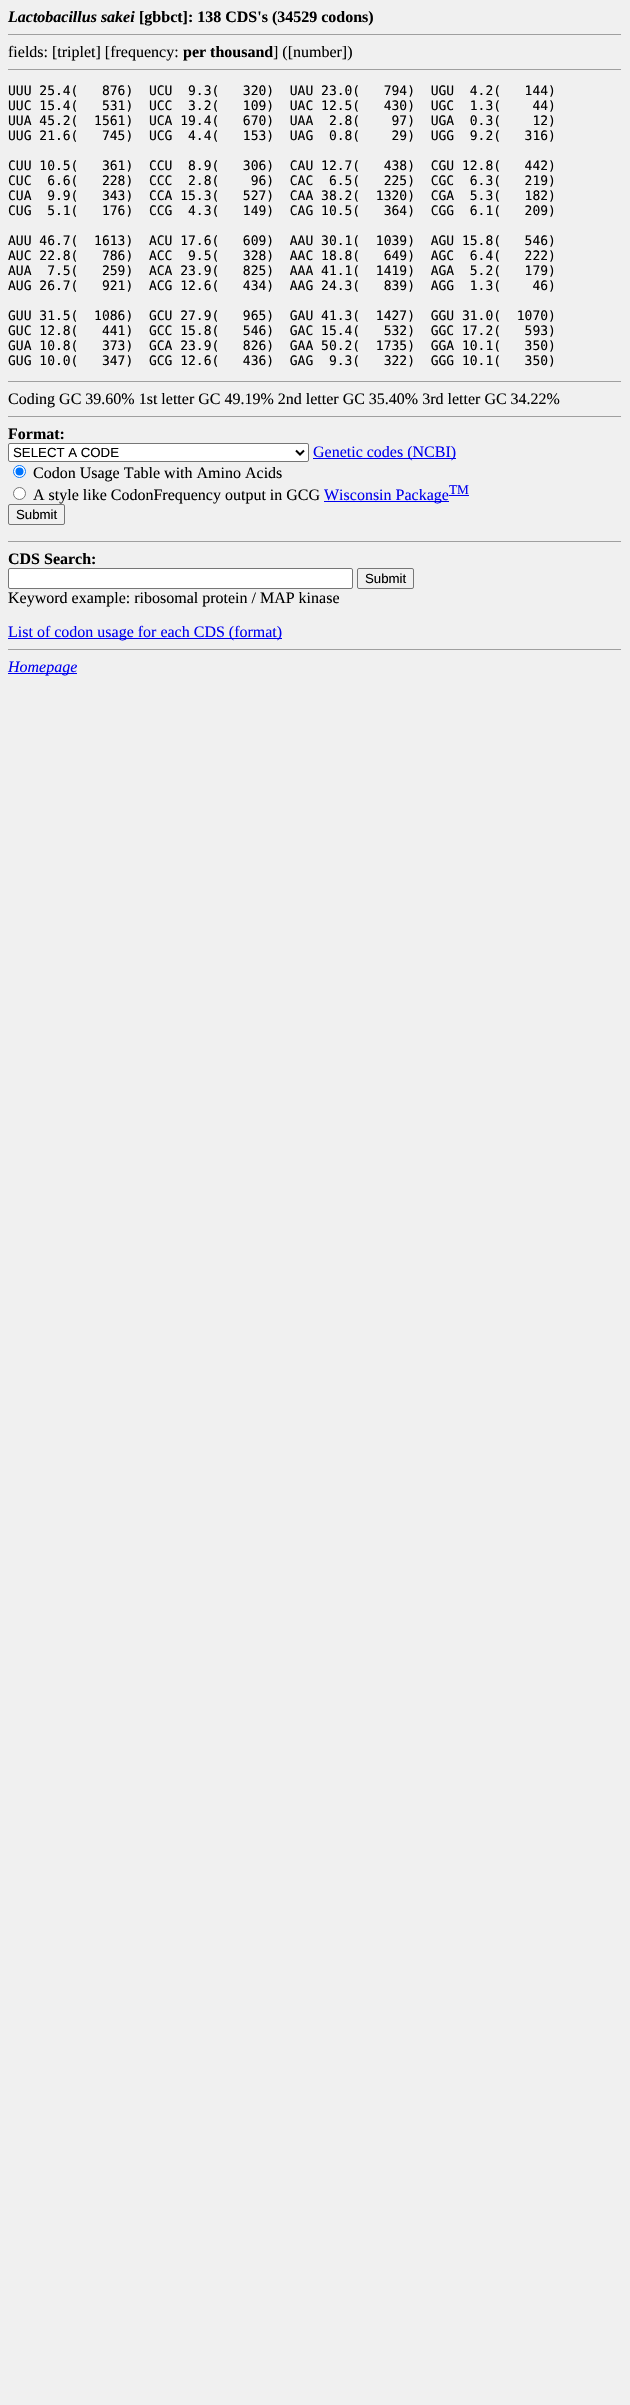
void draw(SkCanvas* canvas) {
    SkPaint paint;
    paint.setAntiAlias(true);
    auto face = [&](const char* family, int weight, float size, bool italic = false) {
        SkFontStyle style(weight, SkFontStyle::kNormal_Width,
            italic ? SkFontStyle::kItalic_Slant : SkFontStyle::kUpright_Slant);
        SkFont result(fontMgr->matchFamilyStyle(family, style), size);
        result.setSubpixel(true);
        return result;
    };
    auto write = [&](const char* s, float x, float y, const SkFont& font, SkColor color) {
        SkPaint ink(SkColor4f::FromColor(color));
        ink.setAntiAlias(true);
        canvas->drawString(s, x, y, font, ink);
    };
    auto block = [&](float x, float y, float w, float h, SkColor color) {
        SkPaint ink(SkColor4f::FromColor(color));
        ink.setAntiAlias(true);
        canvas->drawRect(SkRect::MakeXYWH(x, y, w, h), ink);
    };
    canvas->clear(SkColorSetRGB(240, 240, 240));
    auto kFont1 = face("Liberation Serif", 700, 16, true);
    write("Lactobacillus sakei", 8, 22, kFont1, SK_ColorBLACK);
    auto kFont2 = face("Liberation Serif", 700, 16);
    write("[gbbct]: 138 CDS's (34529 codons)", 139, 22, kFont2, SK_ColorBLACK);
    block(8, 34, 614, 1, SkColorSetRGB(159, 159, 159));
    block(621, 34, 1, 1, SkColorSetRGB(238, 238, 238));
    auto kFont3 = face("Liberation Serif", 400, 16);
    write("fields: [triplet] [frequency:", 8, 57, kFont3, SK_ColorBLACK);
    write("per thousand", 183, 57, kFont2, SK_ColorBLACK);
    write("] ([number])", 273, 57, kFont3, SK_ColorBLACK);
    block(8, 69, 614, 1, SkColorSetRGB(159, 159, 159));
    block(621, 69, 1, 1, SkColorSetRGB(238, 238, 238));
    auto kFont4 = face("DejaVu Sans Mono", 400, 13);
    write("UUU 25.4(   876)  UCU  9.3(   320)  UAU 23.0(   794)  UGU  4.2(   144)", 8, 95, kFont4, SK_ColorBLACK);
    write("UUC 15.4(   531)  UCC  3.2(   109)  UAC 12.5(   430)  UGC  1.3(    44)", 8, 110, kFont4, SK_ColorBLACK);
    write("UUA 45.2(  1561)  UCA 19.4(   670)  UAA  2.8(    97)  UGA  0.3(    12)", 8, 125, kFont4, SK_ColorBLACK);
    write("UUG 21.6(   745)  UCG  4.4(   153)  UAG  0.8(    29)  UGG  9.2(   316)", 8, 140, kFont4, SK_ColorBLACK);
    write("CUU 10.5(   361)  CCU  8.9(   306)  CAU 12.7(   438)  CGU 12.8(   442)", 8, 170, kFont4, SK_ColorBLACK);
    write("CUC  6.6(   228)  CCC  2.8(    96)  CAC  6.5(   225)  CGC  6.3(   219)", 8, 185, kFont4, SK_ColorBLACK);
    write("CUA  9.9(   343)  CCA 15.3(   527)  CAA 38.2(  1320)  CGA  5.3(   182)", 8, 200, kFont4, SK_ColorBLACK);
    write("CUG  5.1(   176)  CCG  4.3(   149)  CAG 10.5(   364)  CGG  6.1(   209)", 8, 215, kFont4, SK_ColorBLACK);
    write("AUU 46.7(  1613)  ACU 17.6(   609)  AAU 30.1(  1039)  AGU 15.8(   546)", 8, 245, kFont4, SK_ColorBLACK);
    write("AUC 22.8(   786)  ACC  9.5(   328)  AAC 18.8(   649)  AGC  6.4(   222)", 8, 260, kFont4, SK_ColorBLACK);
    write("AUA  7.5(   259)  ACA 23.9(   825)  AAA 41.1(  1419)  AGA  5.2(   179)", 8, 275, kFont4, SK_ColorBLACK);
    write("AUG 26.7(   921)  ACG 12.6(   434)  AAG 24.3(   839)  AGG  1.3(    46)", 8, 290, kFont4, SK_ColorBLACK);
    write("GUU 31.5(  1086)  GCU 27.9(   965)  GAU 41.3(  1427)  GGU 31.0(  1070)", 8, 320, kFont4, SK_ColorBLACK);
    write("GUC 12.8(   441)  GCC 15.8(   546)  GAC 15.4(   532)  GGC 17.2(   593)", 8, 335, kFont4, SK_ColorBLACK);
    write("GUA 10.8(   373)  GCA 23.9(   826)  GAA 50.2(  1735)  GGA 10.1(   350)", 8, 350, kFont4, SK_ColorBLACK);
    write("GUG 10.0(   347)  GCG 12.6(   436)  GAG  9.3(   322)  GGG 10.1(   350)", 8, 365, kFont4, SK_ColorBLACK);
    block(8, 381, 614, 1, SkColorSetRGB(159, 159, 159));
    block(621, 381, 1, 1, SkColorSetRGB(238, 238, 238));
    write("Coding GC 39.60% 1st letter GC 49.19% 2nd letter GC 35.40% 3rd letter GC 34.22%", 8, 404, kFont3, SK_ColorBLACK);
    block(8, 416, 614, 1, SkColorSetRGB(159, 159, 159));
    block(621, 416, 1, 1, SkColorSetRGB(238, 238, 238));
    write("Format:", 8, 439, kFont2, SK_ColorBLACK);
    paint.setColor(SK_ColorWHITE);
    canvas->drawRoundRect(SkRect::MakeXYWH(8.5f, 443.5f, 300, 18), 1.5f, 1.5f, paint);
    paint.setStyle(SkPaint::kStroke_Style);
    paint.setStrokeWidth(1);
    paint.setColor(SkColorSetRGB(118, 118, 118));
    canvas->drawRoundRect(SkRect::MakeXYWH(8.5f, 443.5f, 300, 18), 1.5f, 1.5f, paint);
    paint.setStrokeWidth(2);
    paint.setColor(SK_ColorBLACK);
    canvas->drawPath(SkPathBuilder().moveTo(296, 450.5f).lineTo(300, 454.5f).lineTo(304, 450.5f).detach(), paint);
    auto kFont5 = face("Liberation Sans", 400, 13.25f);
    write("SELECT A CODE", 13, 457, kFont5, SK_ColorBLACK);
    block(313, 458, 143, 1, SkColorSetRGB(0, 0, 238));
    write("Genetic codes (NCBI)", 313, 457, kFont3, SkColorSetRGB(0, 0, 238));
    paint.setStyle(SkPaint::kFill_Style);
    paint.setColor(SK_ColorWHITE);
    canvas->drawCircle(19.5f, 471.5f, 6, paint);
    paint.setStyle(SkPaint::kStroke_Style);
    paint.setStrokeWidth(1);
    paint.setColor(SkColorSetRGB(0, 117, 255));
    canvas->drawCircle(19.5f, 471.5f, 6, paint);
    paint.setStyle(SkPaint::kFill_Style);
    canvas->drawCircle(19.5f, 471.5f, 4, paint);
    write("Codon Usage Table with Amino Acids", 33, 478, kFont3, SK_ColorBLACK);
    paint.setColor(SK_ColorWHITE);
    canvas->drawCircle(19.5f, 493.5f, 6, paint);
    paint.setStyle(SkPaint::kStroke_Style);
    paint.setColor(SkColorSetRGB(118, 118, 118));
    canvas->drawCircle(19.5f, 493.5f, 6, paint);
    write("A style like CodonFrequency output in GCG", 33, 500, kFont3, SK_ColorBLACK);
    block(324, 501, 125, 1, SkColorSetRGB(0, 0, 238));
    write("Wisconsin Package", 324, 500, kFont3, SkColorSetRGB(0, 0, 238));
    block(449, 495, 20, 1, SkColorSetRGB(0, 0, 238));
    auto kFont6 = face("Liberation Serif", 400, 13.25f);
    write("TM", 449, 494, kFont6, SkColorSetRGB(0, 0, 238));
    canvas->drawRoundRect(SkRect::MakeXYWH(8.5f, 504.5f, 56, 20), 1.5f, 1.5f, paint);
    write("Submit", 16, 519, kFont5, SK_ColorBLACK);
    block(8, 541, 614, 1, SkColorSetRGB(159, 159, 159));
    block(621, 541, 1, 1, SkColorSetRGB(238, 238, 238));
    write("CDS Search:", 8, 564, kFont2, SK_ColorBLACK);
    paint.setStyle(SkPaint::kFill_Style);
    paint.setColor(SK_ColorWHITE);
    canvas->drawRoundRect(SkRect::MakeXYWH(8.5f, 568.5f, 344, 20), 1.5f, 1.5f, paint);
    paint.setStyle(SkPaint::kStroke_Style);
    paint.setColor(SkColorSetRGB(118, 118, 118));
    canvas->drawRoundRect(SkRect::MakeXYWH(8.5f, 568.5f, 344, 20), 1.5f, 1.5f, paint);
    canvas->drawRoundRect(SkRect::MakeXYWH(357.5f, 568.5f, 56, 20), 1.5f, 1.5f, paint);
    write("Submit", 365, 583, kFont5, SK_ColorBLACK);
    write("Keyword example: ribosomal protein / MAP kinase", 8, 603, kFont3, SK_ColorBLACK);
    block(8, 638, 274, 1, SkColorSetRGB(0, 0, 238));
    write("List of codon usage for each CDS (format)", 8, 637, kFont3, SkColorSetRGB(0, 0, 238));
    block(8, 649, 614, 1, SkColorSetRGB(159, 159, 159));
    block(621, 649, 1, 1, SkColorSetRGB(238, 238, 238));
    block(8, 673, 69, 1, SkColorSetRGB(0, 0, 238));
    auto kFont7 = face("Liberation Serif", 400, 16, true);
    write("Homepage", 8, 672, kFont7, SkColorSetRGB(0, 0, 238));
}
